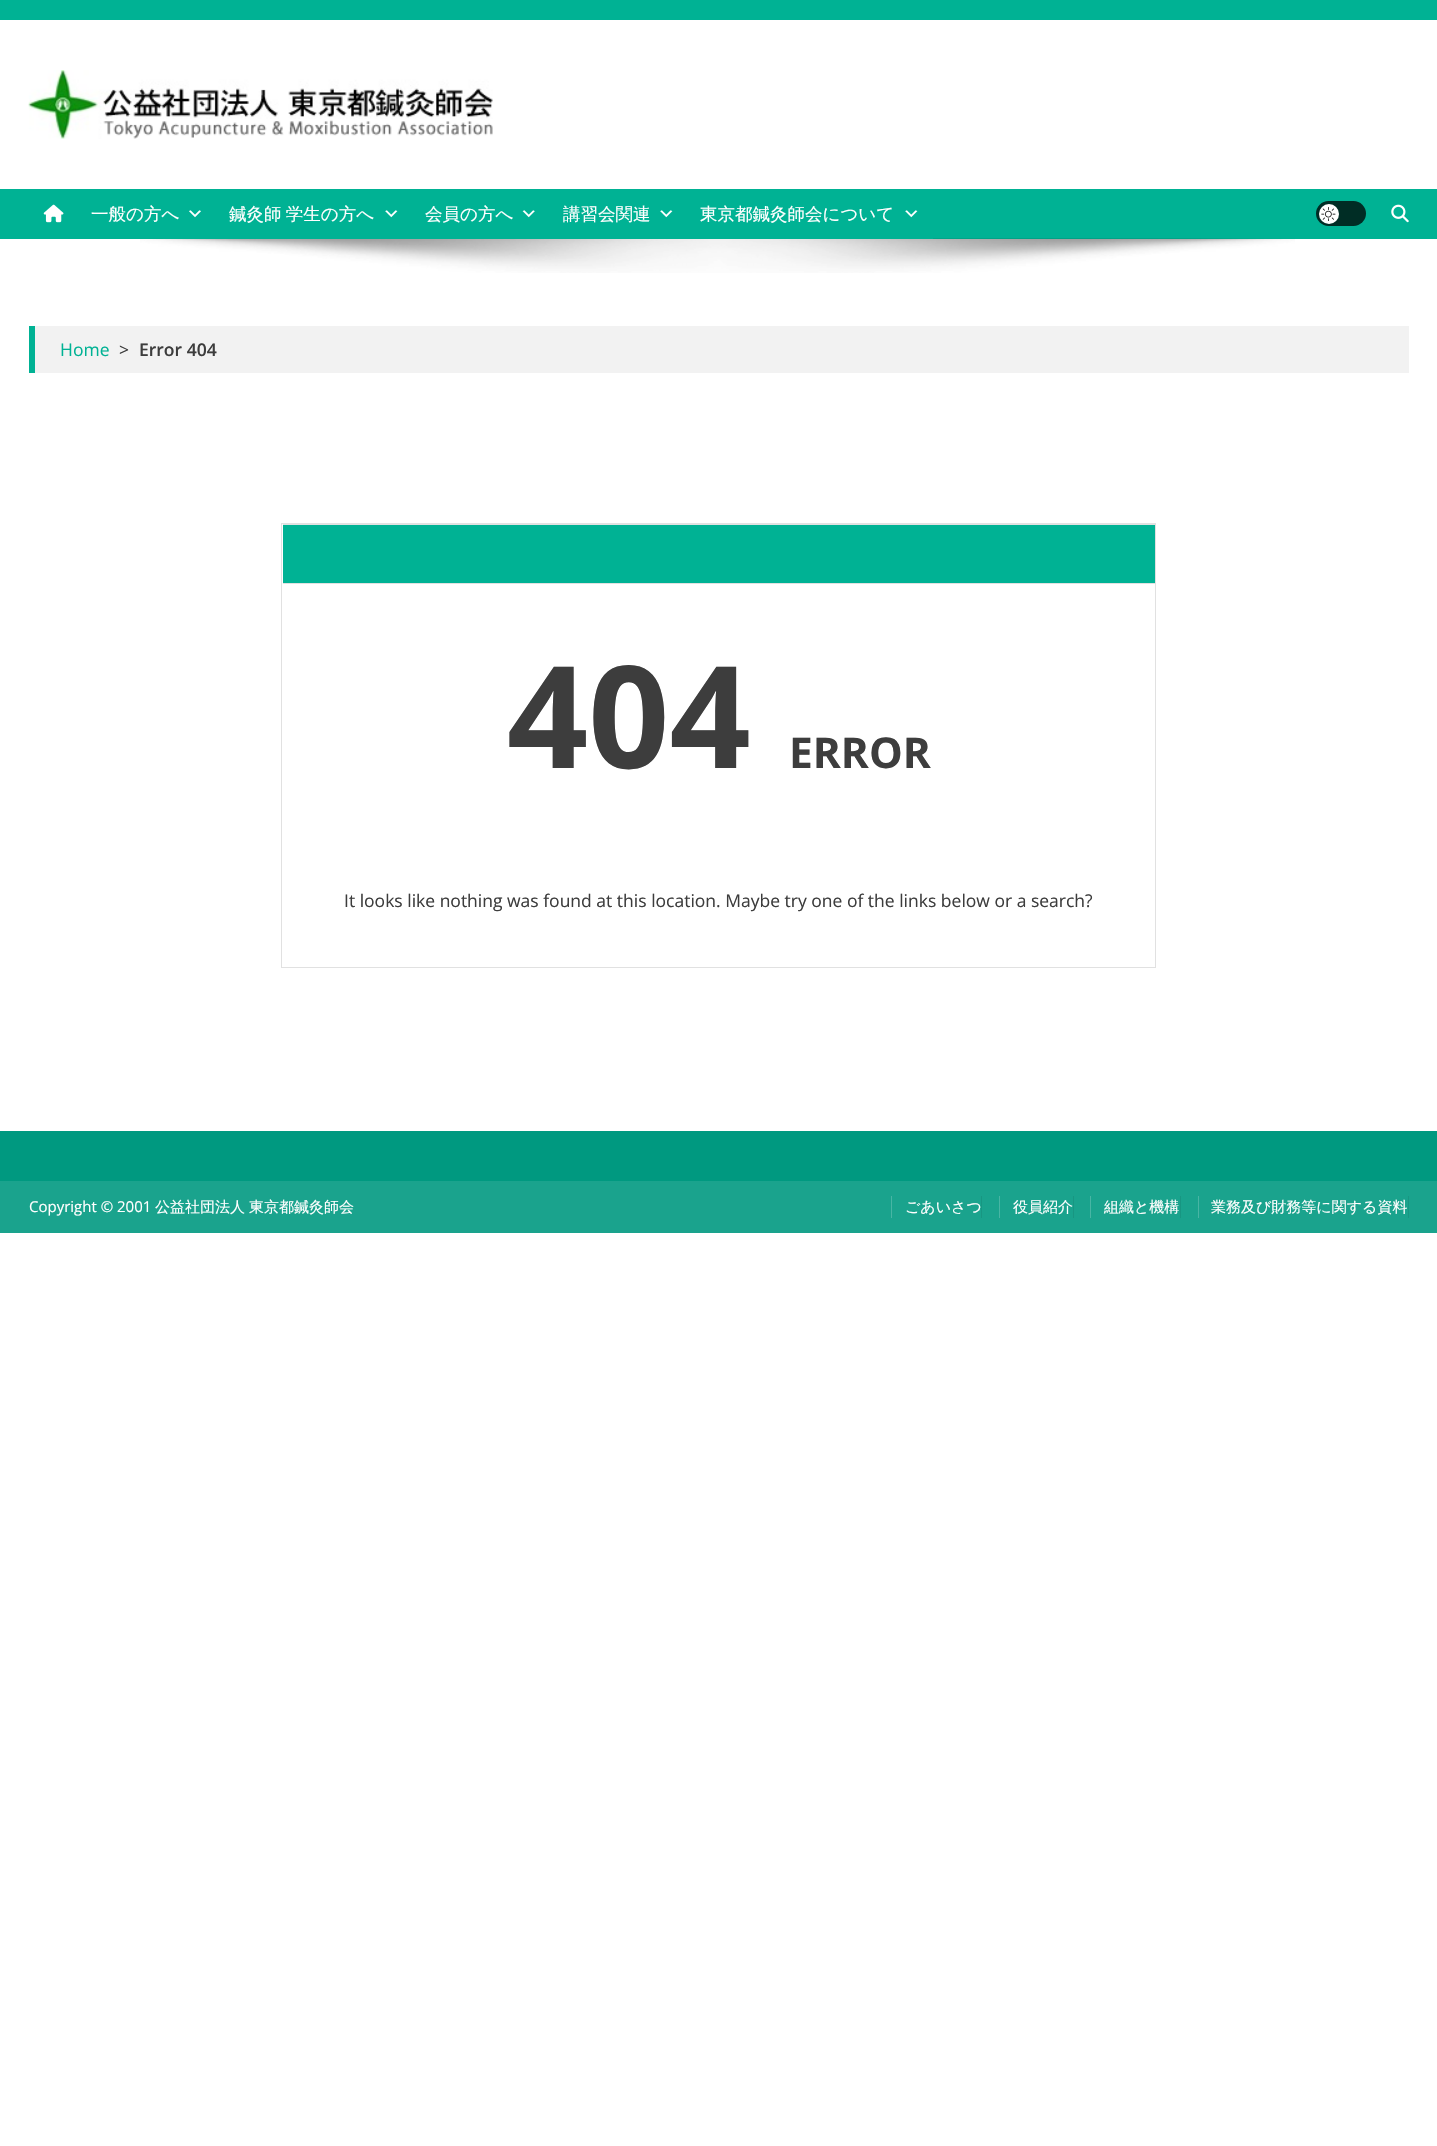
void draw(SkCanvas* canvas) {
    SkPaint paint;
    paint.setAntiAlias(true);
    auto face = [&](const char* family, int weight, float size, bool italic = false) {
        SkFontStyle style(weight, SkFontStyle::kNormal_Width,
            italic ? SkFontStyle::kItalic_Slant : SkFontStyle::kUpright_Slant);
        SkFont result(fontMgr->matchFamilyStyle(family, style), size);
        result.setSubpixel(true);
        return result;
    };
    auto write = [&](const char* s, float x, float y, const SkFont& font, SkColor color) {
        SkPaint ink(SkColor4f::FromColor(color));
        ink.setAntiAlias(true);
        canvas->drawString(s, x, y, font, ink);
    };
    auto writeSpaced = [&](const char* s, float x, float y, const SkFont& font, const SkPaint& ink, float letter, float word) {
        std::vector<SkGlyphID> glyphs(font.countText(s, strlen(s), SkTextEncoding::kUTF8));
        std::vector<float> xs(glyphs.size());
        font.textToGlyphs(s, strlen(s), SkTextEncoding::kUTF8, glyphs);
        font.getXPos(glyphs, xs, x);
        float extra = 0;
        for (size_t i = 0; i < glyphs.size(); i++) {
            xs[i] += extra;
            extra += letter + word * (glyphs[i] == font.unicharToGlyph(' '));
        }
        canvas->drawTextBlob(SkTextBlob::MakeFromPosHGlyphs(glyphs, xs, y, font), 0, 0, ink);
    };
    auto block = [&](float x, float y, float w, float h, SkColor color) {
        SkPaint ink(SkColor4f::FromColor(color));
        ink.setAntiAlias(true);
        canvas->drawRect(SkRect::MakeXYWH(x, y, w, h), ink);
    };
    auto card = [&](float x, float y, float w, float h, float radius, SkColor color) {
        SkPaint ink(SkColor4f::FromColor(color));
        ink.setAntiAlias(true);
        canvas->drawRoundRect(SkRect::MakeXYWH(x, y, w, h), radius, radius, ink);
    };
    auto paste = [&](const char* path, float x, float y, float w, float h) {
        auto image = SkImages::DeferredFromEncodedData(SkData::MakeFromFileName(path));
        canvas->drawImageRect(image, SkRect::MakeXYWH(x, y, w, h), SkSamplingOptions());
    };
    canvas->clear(SK_ColorWHITE);
    block(0, 0, 1437, 20, SkColorSetRGB(0, 178, 148));
    paste("pic1.png", 28, 70, 465, 69);
    block(0, 189, 1437, 50, SkColorSetRGB(0, 178, 148));
    paste("pic2.png", 43, 204, 21, 19);
    paste("pic8.png", 140, 238, 1155, 35);
    block(163, 238, 770, 1, SkColorSetRGB(0, 178, 148));
    auto kFont1 = face("WenQuanYi Zen Hei", 500, 17.5f);
    write("一般の方へ", 91, 220, kFont1, SK_ColorWHITE);
    paste("pic3.png", 189, 210, 12, 8);
    paint.setColor(SK_ColorWHITE);
    writeSpaced("鍼灸師 学生の方へ", 229, 220, kFont1, paint, 0, -1);
    paste("pic4.png", 385, 210, 13, 8);
    write("会員の方へ", 425, 220, kFont1, SK_ColorWHITE);
    paste("pic5.png", 522, 210, 13, 8);
    write("講習会関連", 563, 220, kFont1, SK_ColorWHITE);
    paste("pic4.png", 660, 210, 13, 8);
    write("東京都鍼灸師会について", 700, 220, kFont1, SK_ColorWHITE);
    paste("pic4.png", 905, 210, 13, 8);
    card(1316, 201, 50, 25, 12.5f, SkColorSetRGB(0, 45, 37));
    canvas->drawCircle(1329, 214, 10, paint);
    paste("pic6.png", 1321, 207, 15, 14);
    paste("pic7.png", 1391, 204, 18, 19);
    block(35, 326, 1374, 47, SkColorSetRGB(242, 242, 242));
    block(29, 326, 6, 47, SkColorSetRGB(0, 178, 148));
    auto kFont2 = face("Open Sans", 400, 17.5f);
    write("Home", 60, 356, kFont2, SkColorSetRGB(0, 178, 148));
    write(">", 119, 356, kFont2, SkColorSetRGB(61, 61, 61));
    auto kFont3 = face("Open Sans", 600, 17.5f);
    write("Error 404", 139, 356, kFont3, SkColorSetRGB(61, 61, 61));
    paint.setStyle(SkPaint::kStroke_Style);
    paint.setStrokeWidth(1);
    paint.setColor(SkColorSetRGB(225, 225, 225));
    canvas->drawRect(SkRect::MakeXYWH(281.5f, 523.5f, 874, 444), paint);
    block(283, 525, 872, 58, SkColorSetRGB(0, 178, 148));
    block(283, 524, 872, 1, SkColorSetRGB(225, 225, 225));
    block(283, 583, 872, 1, SkColorSetRGB(225, 225, 225));
    auto kFont4 = face("Open Sans", 700, 142);
    write("404", 507, 768, kFont4, SkColorSetRGB(61, 61, 61));
    auto kFont5 = face("Open Sans", 700, 42.5f);
    write("ERROR", 789, 768, kFont5, SkColorSetRGB(61, 61, 61));
    write("It looks like nothing was found at this location. Maybe try one of the links below or a search?", 344, 907, kFont2, SkColorSetRGB(61, 61, 61));
    block(0, 1131, 1437, 50, SkColorSetRGB(0, 153, 128));
    block(0, 1181, 1437, 52, SkColorSetRGB(26, 163, 141));
    auto kFont6 = face("Open Sans", 400, 15);
    write("Copyright © 2001", 29, 1212, kFont6, SK_ColorWHITE);
    auto kFont7 = face("WenQuanYi Zen Hei", 500, 15);
    write("公益社団法人", 155, 1212, kFont7, SK_ColorWHITE);
    write("東京都鍼灸師会", 249, 1212, kFont7, SK_ColorWHITE);
    write("ごあいさつ", 905, 1212, kFont7, SK_ColorWHITE);
    block(981, 1196, 1, 22, SkColorSetRGB(24, 150, 130));
    block(891, 1196, 1, 22, SkColorSetRGB(72, 181, 164));
    write("役員紹介", 1013, 1212, kFont7, SK_ColorWHITE);
    block(1073, 1196, 1, 22, SkColorSetRGB(24, 150, 130));
    block(999, 1196, 1, 22, SkColorSetRGB(72, 181, 164));
    write("組織と機構", 1104, 1212, kFont7, SK_ColorWHITE);
    block(1180, 1196, 1, 22, SkColorSetRGB(24, 150, 130));
    block(1090, 1196, 1, 22, SkColorSetRGB(72, 181, 164));
    write("業務及び財務等に関する資料", 1211, 1212, kFont7, SK_ColorWHITE);
    block(1408, 1196, 1, 22, SkColorSetRGB(24, 150, 130));
    block(1198, 1196, 1, 22, SkColorSetRGB(72, 181, 164));
}
